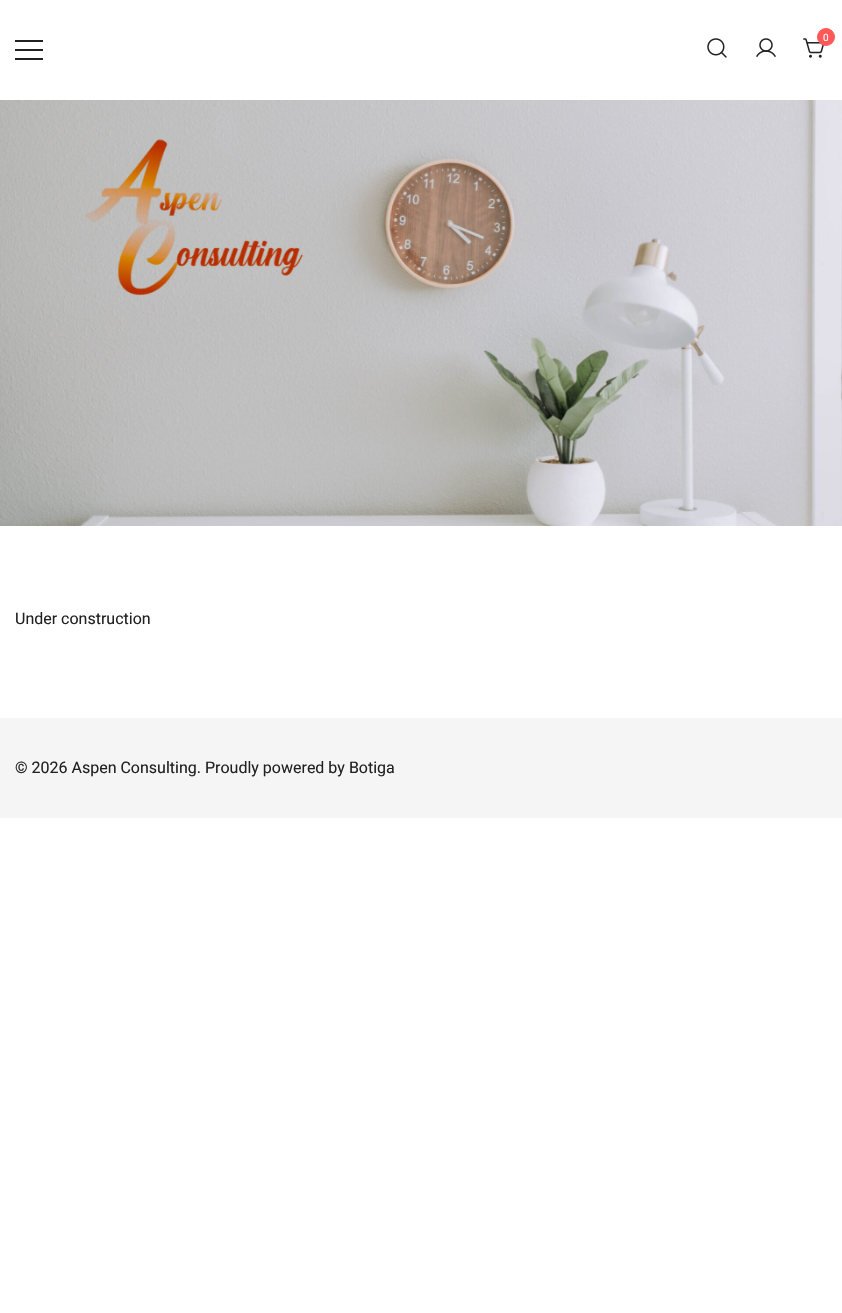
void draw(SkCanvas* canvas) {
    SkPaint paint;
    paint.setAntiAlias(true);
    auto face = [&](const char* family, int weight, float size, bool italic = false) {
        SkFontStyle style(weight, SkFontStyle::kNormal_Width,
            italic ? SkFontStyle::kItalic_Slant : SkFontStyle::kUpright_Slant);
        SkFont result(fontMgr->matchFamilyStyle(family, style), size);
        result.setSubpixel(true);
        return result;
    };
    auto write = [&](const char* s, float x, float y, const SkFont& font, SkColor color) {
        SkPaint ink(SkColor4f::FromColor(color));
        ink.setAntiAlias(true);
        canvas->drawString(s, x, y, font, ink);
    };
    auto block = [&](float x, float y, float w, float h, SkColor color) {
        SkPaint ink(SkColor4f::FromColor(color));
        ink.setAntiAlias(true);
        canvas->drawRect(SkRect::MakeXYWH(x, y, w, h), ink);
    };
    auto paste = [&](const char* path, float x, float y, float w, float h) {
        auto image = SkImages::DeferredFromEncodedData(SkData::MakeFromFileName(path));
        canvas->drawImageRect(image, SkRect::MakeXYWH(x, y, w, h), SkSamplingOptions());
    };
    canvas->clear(SK_ColorWHITE);
    paste("pic1.png", 707, 38, 20, 20);
    paste("pic2.png", 756, 38, 20, 19);
    paste("pic3.png", 803, 38, 21, 20);
    paint.setColor(SkColorSetRGB(255, 88, 88));
    canvas->drawCircle(826, 37, 8.5f, paint);
    paint.setStyle(SkPaint::kStroke_Style);
    paint.setStrokeWidth(1);
    canvas->drawCircle(826, 37, 8.5f, paint);
    auto kFont1 = face("Roboto", 400, 10);
    write("0", 823, 41, kFont1, SK_ColorWHITE);
    block(15, 40, 28, 2, SkColorSetRGB(33, 33, 33));
    block(15, 49, 28, 2, SkColorSetRGB(33, 33, 33));
    block(15, 58, 28, 2, SkColorSetRGB(33, 33, 33));
    paste("pic4.png", 0, 100, 842, 426);
    auto kFont2 = face("Roboto", 400, 16);
    write("Under construction", 15, 624, kFont2, SkColorSetRGB(33, 33, 33));
    block(0, 718, 842, 100, SkColorSetRGB(245, 245, 245));
    write("© 2026 Aspen Consulting. Proudly powered by Botiga", 15, 773, kFont2, SkColorSetRGB(33, 33, 33));
}
